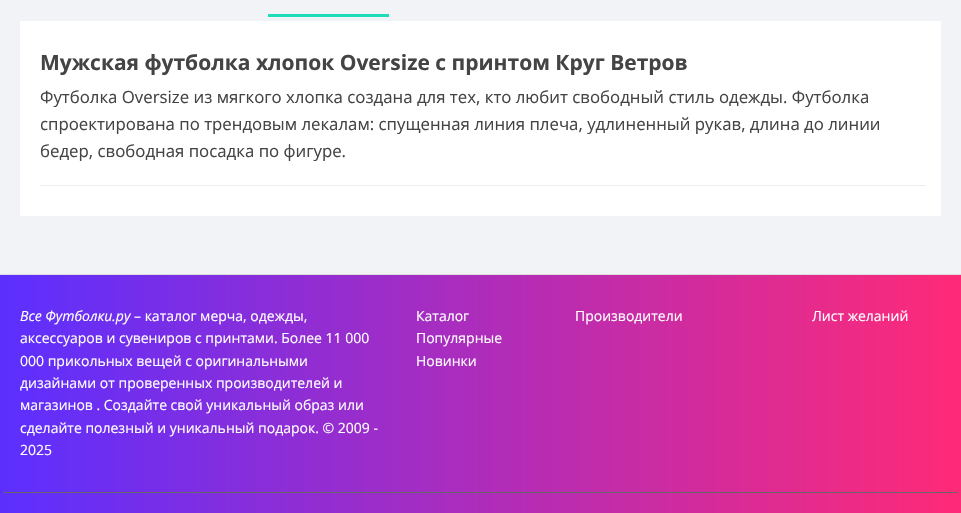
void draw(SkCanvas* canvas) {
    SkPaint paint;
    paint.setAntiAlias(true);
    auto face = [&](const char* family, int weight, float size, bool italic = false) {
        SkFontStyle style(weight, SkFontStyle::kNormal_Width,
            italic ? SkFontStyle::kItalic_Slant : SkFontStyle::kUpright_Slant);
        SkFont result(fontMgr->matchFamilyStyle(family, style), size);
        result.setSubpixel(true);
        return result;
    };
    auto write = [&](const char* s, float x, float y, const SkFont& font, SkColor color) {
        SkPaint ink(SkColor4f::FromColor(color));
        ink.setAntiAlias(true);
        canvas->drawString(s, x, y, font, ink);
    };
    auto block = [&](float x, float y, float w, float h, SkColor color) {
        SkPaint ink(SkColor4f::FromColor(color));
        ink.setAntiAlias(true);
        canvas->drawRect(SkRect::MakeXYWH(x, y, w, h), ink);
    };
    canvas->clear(SkColorSetRGB(242, 243, 247));
    block(268, 14, 121, 3, SkColorSetRGB(30, 221, 183));
    block(20, 21, 921, 195, SK_ColorWHITE);
    auto kFont1 = face("Open Sans", 700, 21);
    write("Мужская футболка хлопок Oversize с принтом Круг Ветров", 40, 70, kFont1, SkColorSetRGB(68, 68, 68));
    auto kFont2 = face("Open Sans", 400, 16.8f);
    write("Футболка Oversize из мягкого хлопка создана для тех, кто любит свободный стиль одежды. Футболка", 40, 103, kFont2, SkColorSetRGB(68, 68, 68));
    write("спроектирована по трендовым лекалам: спущенная линия плеча, удлиненный рукав, длина до линии", 40, 130, kFont2, SkColorSetRGB(68, 68, 68));
    write("бедер, свободная посадка по фигуре.", 40, 157, kFont2, SkColorSetRGB(68, 68, 68));
    block(40, 185, 886, 1, SkColorSetRGB(238, 238, 238));
    {
        const SkColor colors[] = {SkColorSetRGB(92, 47, 255), SkColorSetRGB(255, 42, 119)};
        const float stops[] = {0, 1};
        const SkPoint ends[] = {{0, 394}, {961, 394}};
        paint.setShader(SkGradientShader::MakeLinear(ends, colors, stops, 2, SkTileMode::kClamp));
        paint.setAlpha(255);
    }
    canvas->drawRect(SkRect::MakeXYWH(0, 275, 961, 238), paint);
    block(0, 274, 961, 1, SkColorSetRGB(221, 221, 221));
    auto kFont3 = face("Open Sans", 400, 14, true);
    write("Все Футболки.ру", 20, 321, kFont3, SK_ColorWHITE);
    auto kFont4 = face("Open Sans", 400, 14);
    write("– каталог мерча, одежды,", 134, 321, kFont4, SK_ColorWHITE);
    write("аксессуаров и сувениров c принтами. Более 11 000", 20, 343, kFont4, SK_ColorWHITE);
    write("000 прикольных вещей с оригинальными", 20, 366, kFont4, SK_ColorWHITE);
    write("дизайнами от проверенных производителей и", 20, 388, kFont4, SK_ColorWHITE);
    write("магазинов . Создайте свой уникальный образ или", 20, 410, kFont4, SK_ColorWHITE);
    write("сделайте полезный и уникальный подарок. © 2009 -", 20, 433, kFont4, SK_ColorWHITE);
    write("2025", 20, 455, kFont4, SK_ColorWHITE);
    write("Каталог", 416, 321, kFont4, SK_ColorWHITE);
    write("Популярные", 416, 343, kFont4, SK_ColorWHITE);
    write("Новинки", 416, 366, kFont4, SK_ColorWHITE);
    write("Производители", 575, 321, kFont4, SK_ColorWHITE);
    write("Лист желаний", 812, 321, kFont4, SK_ColorWHITE);
    block(3, 492, 955, 1, SkColorSetRGB(102, 102, 102));
}
